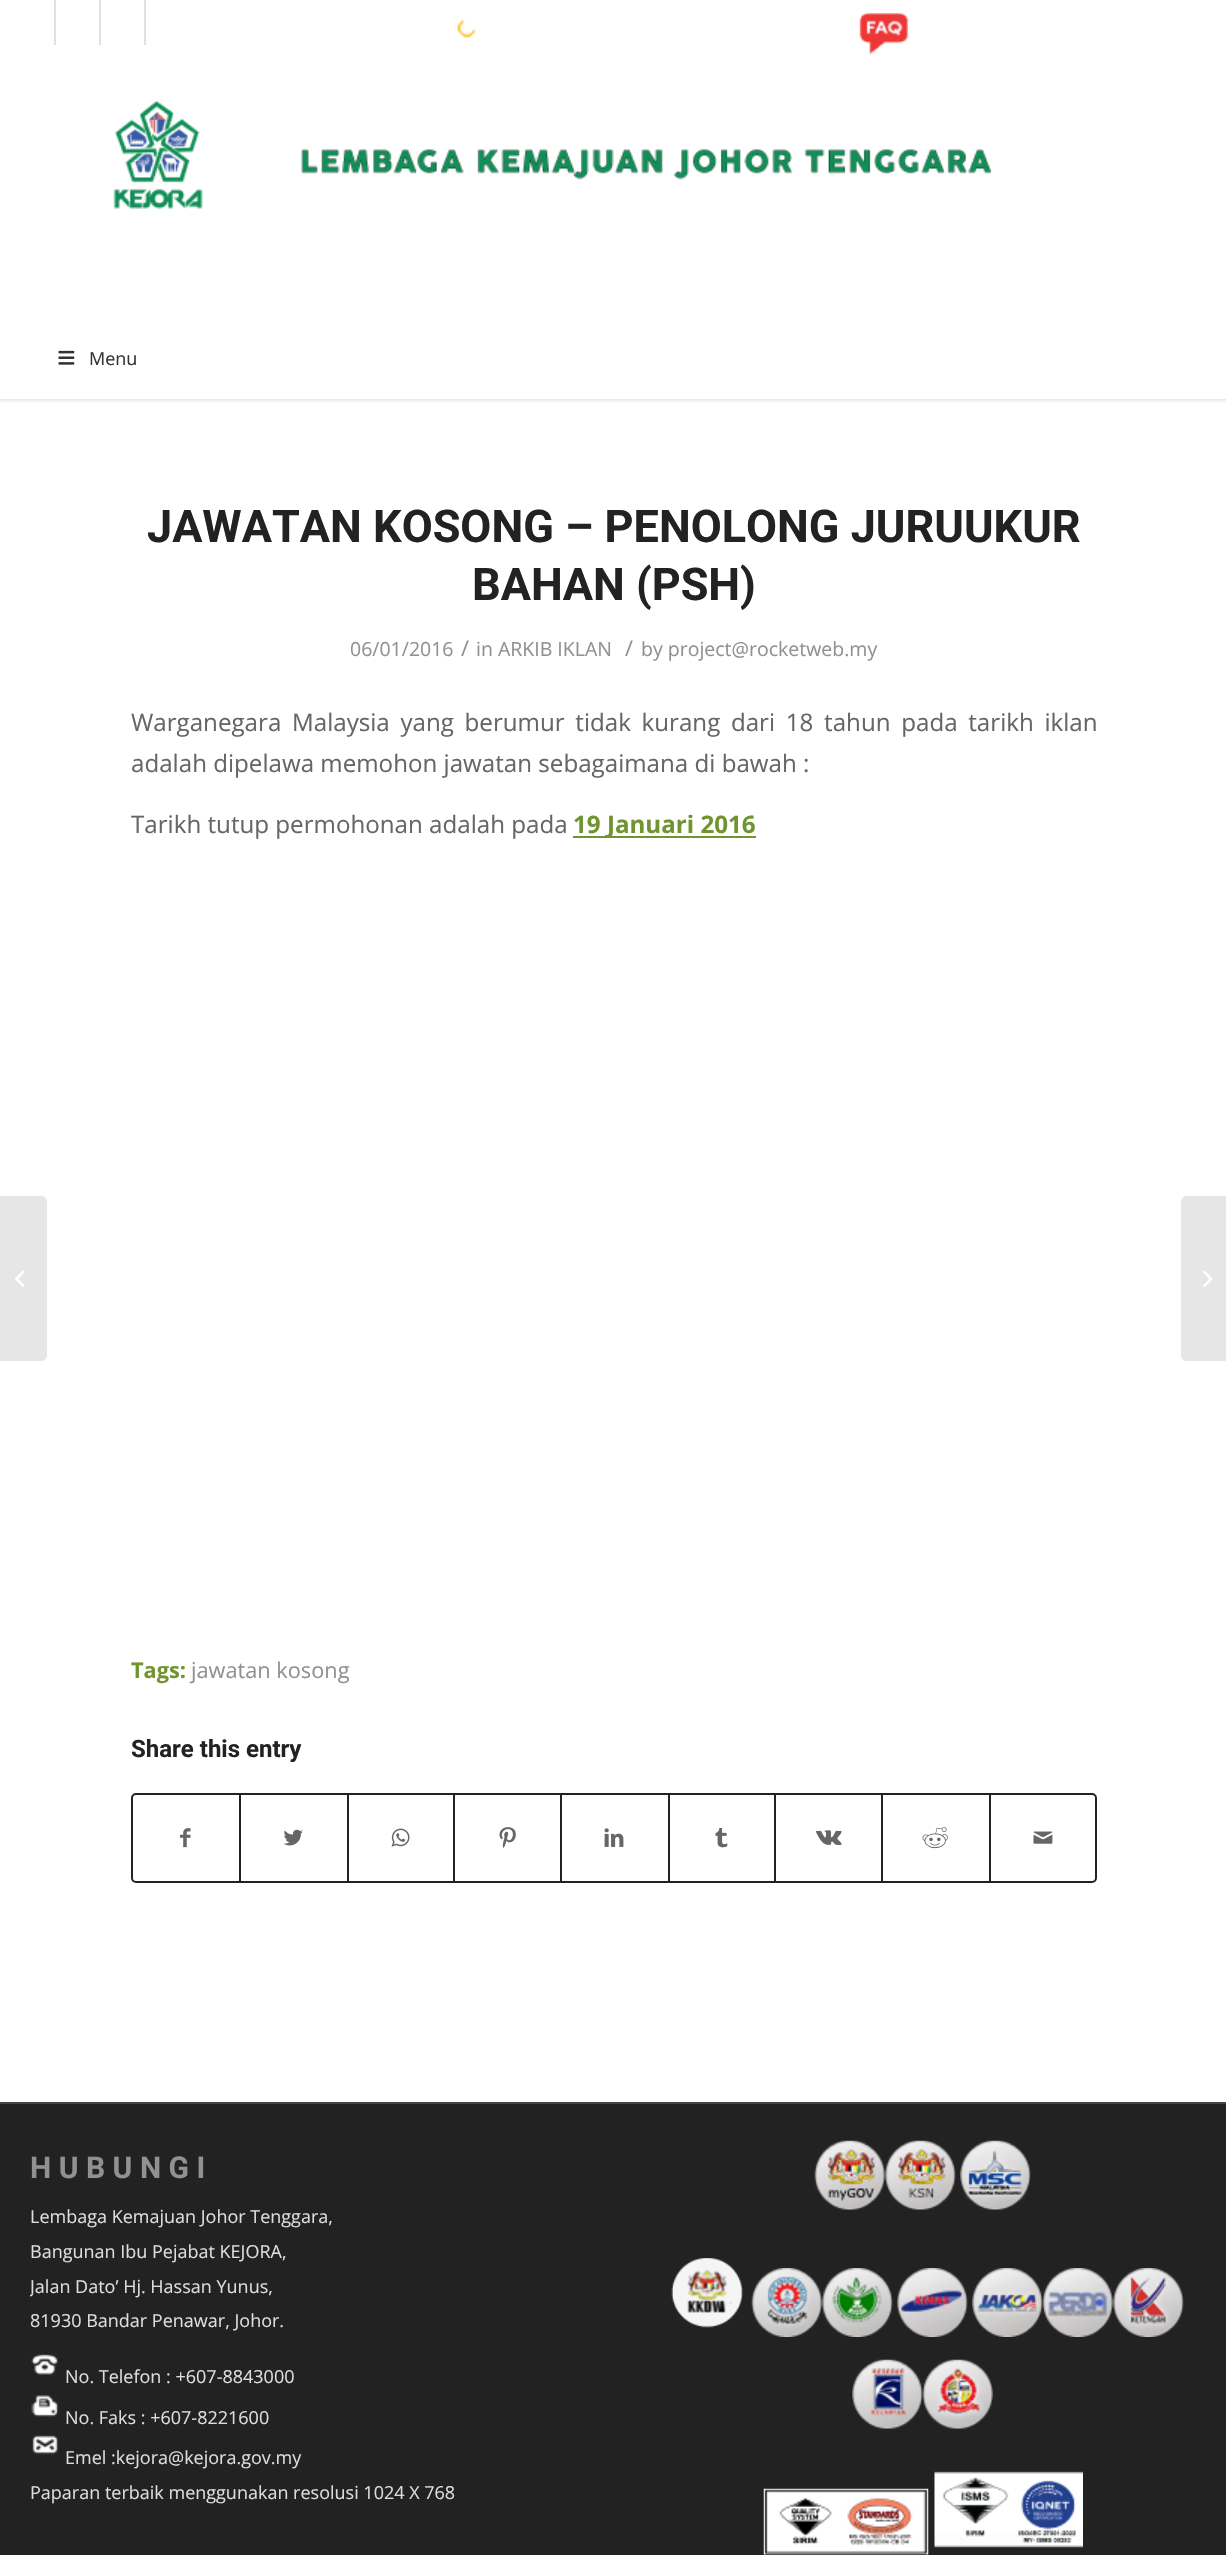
void draw(SkCanvas* canvas) {
    SkPaint paint;
    paint.setAntiAlias(true);
    auto face = [&](const char* family, int weight, float size, bool italic = false) {
        SkFontStyle style(weight, SkFontStyle::kNormal_Width,
            italic ? SkFontStyle::kItalic_Slant : SkFontStyle::kUpright_Slant);
        SkFont result(fontMgr->matchFamilyStyle(family, style), size);
        result.setSubpixel(true);
        return result;
    };
    auto write = [&](const char* s, float x, float y, const SkFont& font, SkColor color) {
        SkPaint ink(SkColor4f::FromColor(color));
        ink.setAntiAlias(true);
        canvas->drawString(s, x, y, font, ink);
    };
    auto writeSpaced = [&](const char* s, float x, float y, const SkFont& font, const SkPaint& ink, float letter, float word) {
        std::vector<SkGlyphID> glyphs(font.countText(s, strlen(s), SkTextEncoding::kUTF8));
        std::vector<float> xs(glyphs.size());
        font.textToGlyphs(s, strlen(s), SkTextEncoding::kUTF8, glyphs);
        font.getXPos(glyphs, xs, x);
        float extra = 0;
        for (size_t i = 0; i < glyphs.size(); i++) {
            xs[i] += extra;
            extra += letter + word * (glyphs[i] == font.unicharToGlyph(' '));
        }
        canvas->drawTextBlob(SkTextBlob::MakeFromPosHGlyphs(glyphs, xs, y, font), 0, 0, ink);
    };
    auto block = [&](float x, float y, float w, float h, SkColor color) {
        SkPaint ink(SkColor4f::FromColor(color));
        ink.setAntiAlias(true);
        canvas->drawRect(SkRect::MakeXYWH(x, y, w, h), ink);
    };
    auto paste = [&](const char* path, float x, float y, float w, float h) {
        auto image = SkImages::DeferredFromEncodedData(SkData::MakeFromFileName(path));
        canvas->drawImageRect(image, SkRect::MakeXYWH(x, y, w, h), SkSamplingOptions());
    };
    canvas->clear(SK_ColorWHITE);
    paint.setColor(SkColorSetARGB(26, 0, 0, 0));
    paint.setMaskFilter(SkMaskFilter::MakeBlur(kNormal_SkBlurStyle, 1.5f));
    canvas->drawRect(SkRect::MakeXYWH(-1, -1, 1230, 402), paint);
    paint.setMaskFilter(nullptr);
    block(0, 0, 1226, 399, SK_ColorWHITE);
    block(54, 0, 2, 45, SkColorSetRGB(225, 225, 225));
    block(99, 0, 2, 45, SkColorSetRGB(225, 225, 225));
    block(144, 0, 2, 45, SkColorSetRGB(225, 225, 225));
    paste("pic1.png", 457, 19, 20, 19);
    paste("pic2.png", 859, 13, 51, 42);
    paste("pic3.png", 113, 100, 879, 109);
    paste("pic4.png", 58, 350, 17, 15);
    auto kFont1 = face("Open Sans", 400, 18);
    write("Menu", 89, 365, kFont1, SkColorSetRGB(51, 51, 51));
    paint.setColor(SkColorSetRGB(230, 230, 230));
    canvas->drawPath(SkPathBuilder().moveTo(0, 1196).lineTo(41, 1196).cubicTo(44.5f, 1196, 47, 1198.5f, 47, 1202).lineTo(47, 1355).cubicTo(47, 1358.5f, 44.5f, 1361, 41, 1361).lineTo(0, 1361).close().detach(), paint);
    paste("pic5.png", 15, 1270, 10, 17);
    auto kFont2 = face("Roboto", 700, 45);
    write("JAWATAN KOSONG – PENOLONG JURUUKUR", 147, 542, kFont2, SkColorSetRGB(34, 34, 34));
    write("BAHAN (PSH)", 472, 600, kFont2, SkColorSetRGB(34, 34, 34));
    auto kFont3 = face("Open Sans", 400, 19.5f);
    write("06/01/2016", 350, 656, kFont3, SkColorSetRGB(145, 145, 145));
    auto kFont4 = face("Open Sans", 400, 21.75f);
    write("/", 461, 656, kFont4, SkColorSetRGB(145, 145, 145));
    write("in ARKIB IKLAN", 476, 656, kFont3, SkColorSetRGB(145, 145, 145));
    write("/", 625, 656, kFont4, SkColorSetRGB(145, 145, 145));
    write("by project@rocketweb.my", 641, 656, kFont3, SkColorSetRGB(145, 145, 145));
    auto kFont5 = face("Open Sans", 400, 24.15f);
    paint.setColor(SkColorSetRGB(102, 102, 102));
    writeSpaced("Warganegara Malaysia yang berumur tidak kurang dari 18 tahun pada tarikh iklan", 131, 731, kFont5, paint, 0, 4.4f);
    write("adalah dipelawa memohon jawatan sebagaimana di bawah :", 131, 772, kFont5, SkColorSetRGB(102, 102, 102));
    write("Tarikh tutup permohonan adalah pada", 131, 833, kFont5, SkColorSetRGB(102, 102, 102));
    block(573, 836, 183, 2, SkColorSetRGB(113, 148, 48));
    auto kFont6 = face("Open Sans", 700, 24.15f);
    write("19 Januari 2016", 573, 833, kFont6, SkColorSetRGB(113, 148, 48));
    auto kFont7 = face("Open Sans", 700, 21.75f);
    write("Tags:", 131, 1678, kFont7, SkColorSetRGB(113, 148, 48));
    write("jawatan kosong", 191, 1678, kFont4, SkColorSetRGB(145, 145, 145));
    auto kFont8 = face("Roboto", 700, 24);
    write("Share this entry", 131, 1757, kFont8, SkColorSetRGB(34, 34, 34));
    paint.setStyle(SkPaint::kStroke_Style);
    paint.setStrokeWidth(2);
    paint.setColor(SkColorSetRGB(34, 34, 34));
    canvas->drawRoundRect(SkRect::MakeXYWH(132, 1794, 964, 88), 4, 4, paint);
    paste("pic6.png", 180, 1828, 11, 20);
    block(239, 1794, 2, 87, SkColorSetRGB(34, 34, 34));
    paste("pic7.png", 283, 1829, 20, 17);
    block(347, 1794, 2, 87, SkColorSetRGB(34, 34, 34));
    paste("pic8.png", 391, 1828, 19, 19);
    block(453, 1794, 2, 87, SkColorSetRGB(34, 34, 34));
    paste("pic9.png", 499, 1827, 17, 21);
    block(560, 1794, 2, 87, SkColorSetRGB(34, 34, 34));
    paste("pic10.png", 604, 1828, 20, 19);
    block(668, 1794, 2, 87, SkColorSetRGB(34, 34, 34));
    paste("pic11.png", 715, 1828, 13, 20);
    block(774, 1794, 2, 87, SkColorSetRGB(34, 34, 34));
    paste("pic12.png", 816, 1830, 26, 15);
    block(881, 1794, 2, 87, SkColorSetRGB(34, 34, 34));
    paste("pic13.png", 922, 1827, 26, 22);
    block(989, 1794, 2, 87, SkColorSetRGB(34, 34, 34));
    paste("pic14.png", 1033, 1831, 20, 13);
    block(0, 2104, 1226, 451, SkColorSetRGB(34, 34, 34));
    block(0, 2102, 1226, 2, SkColorSetRGB(68, 68, 68));
    auto kFont9 = face("Roboto", 700, 30);
    paint.setStyle(SkPaint::kFill_Style);
    paint.setColor(SkColorSetRGB(145, 145, 145));
    writeSpaced("HUBUNGI", 30, 2178, kFont9, paint, 7.5f, 0);
    write("Lembaga Kemajuan Johor Tenggara,", 30, 2223, kFont1, SkColorSetRGB(221, 221, 221));
    write("Bangunan Ibu Pejabat KEJORA,", 30, 2258, kFont1, SkColorSetRGB(221, 221, 221));
    canvas->save();
    canvas->clipRect(SkRect::MakeXYWH(30, 2126, 549, 349));
    write("Jalan Dato’ Hj. Hassan Yunus,", 30, 2293, kFont1, SkColorSetRGB(221, 221, 221));
    canvas->restore();
    write("81930 Bandar Penawar, Johor.", 30, 2327, kFont1, SkColorSetRGB(221, 221, 221));
    paste("pic15.png", 31, 2354, 27, 21);
    write("No. Telefon : +607-8843000", 65, 2383, kFont1, SkColorSetRGB(221, 221, 221));
    paste("pic16.png", 31, 2395, 28, 22);
    write("No. Faks : +607-8221600", 65, 2424, kFont1, SkColorSetRGB(221, 221, 221));
    paste("pic17.png", 32, 2435, 26, 20);
    write("Emel :kejora@kejora.gov.my", 65, 2464, kFont1, SkColorSetRGB(221, 221, 221));
    write("Paparan terbaik menggunakan resolusi 1024 X 768", 30, 2499, kFont1, SkColorSetRGB(221, 221, 221));
    paste("pic18.png", 814, 2140, 71, 70);
    paste("pic19.png", 885, 2140, 71, 70);
    paste("pic20.png", 960, 2140, 71, 70);
    paste("pic21.png", 671, 2258, 72, 70);
    paste("pic22.png", 751, 2268, 71, 69);
    paste("pic23.png", 822, 2268, 71, 69);
    paste("pic24.png", 897, 2268, 71, 69);
    paste("pic25.png", 972, 2268, 71, 69);
    paste("pic26.png", 1042, 2268, 71, 69);
    paste("pic27.png", 1113, 2268, 71, 69);
    paste("pic28.png", 852, 2359, 71, 70);
    paste("pic29.png", 922, 2359, 71, 70);
    paste("pic30.png", 763, 2488, 166, 67);
    paste("pic31.png", 934, 2471, 149, 77);
    paint.setColor(SkColorSetRGB(230, 230, 230));
    canvas->drawPath(SkPathBuilder().moveTo(1187, 1196).lineTo(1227, 1196).lineTo(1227, 1361).lineTo(1187, 1361).cubicTo(1183.5f, 1361, 1181, 1358.5f, 1181, 1355).lineTo(1181, 1202).cubicTo(1181, 1198.5f, 1183.5f, 1196, 1187, 1196).close().detach(), paint);
    paste("pic32.png", 1203, 1270, 10, 17);
}
